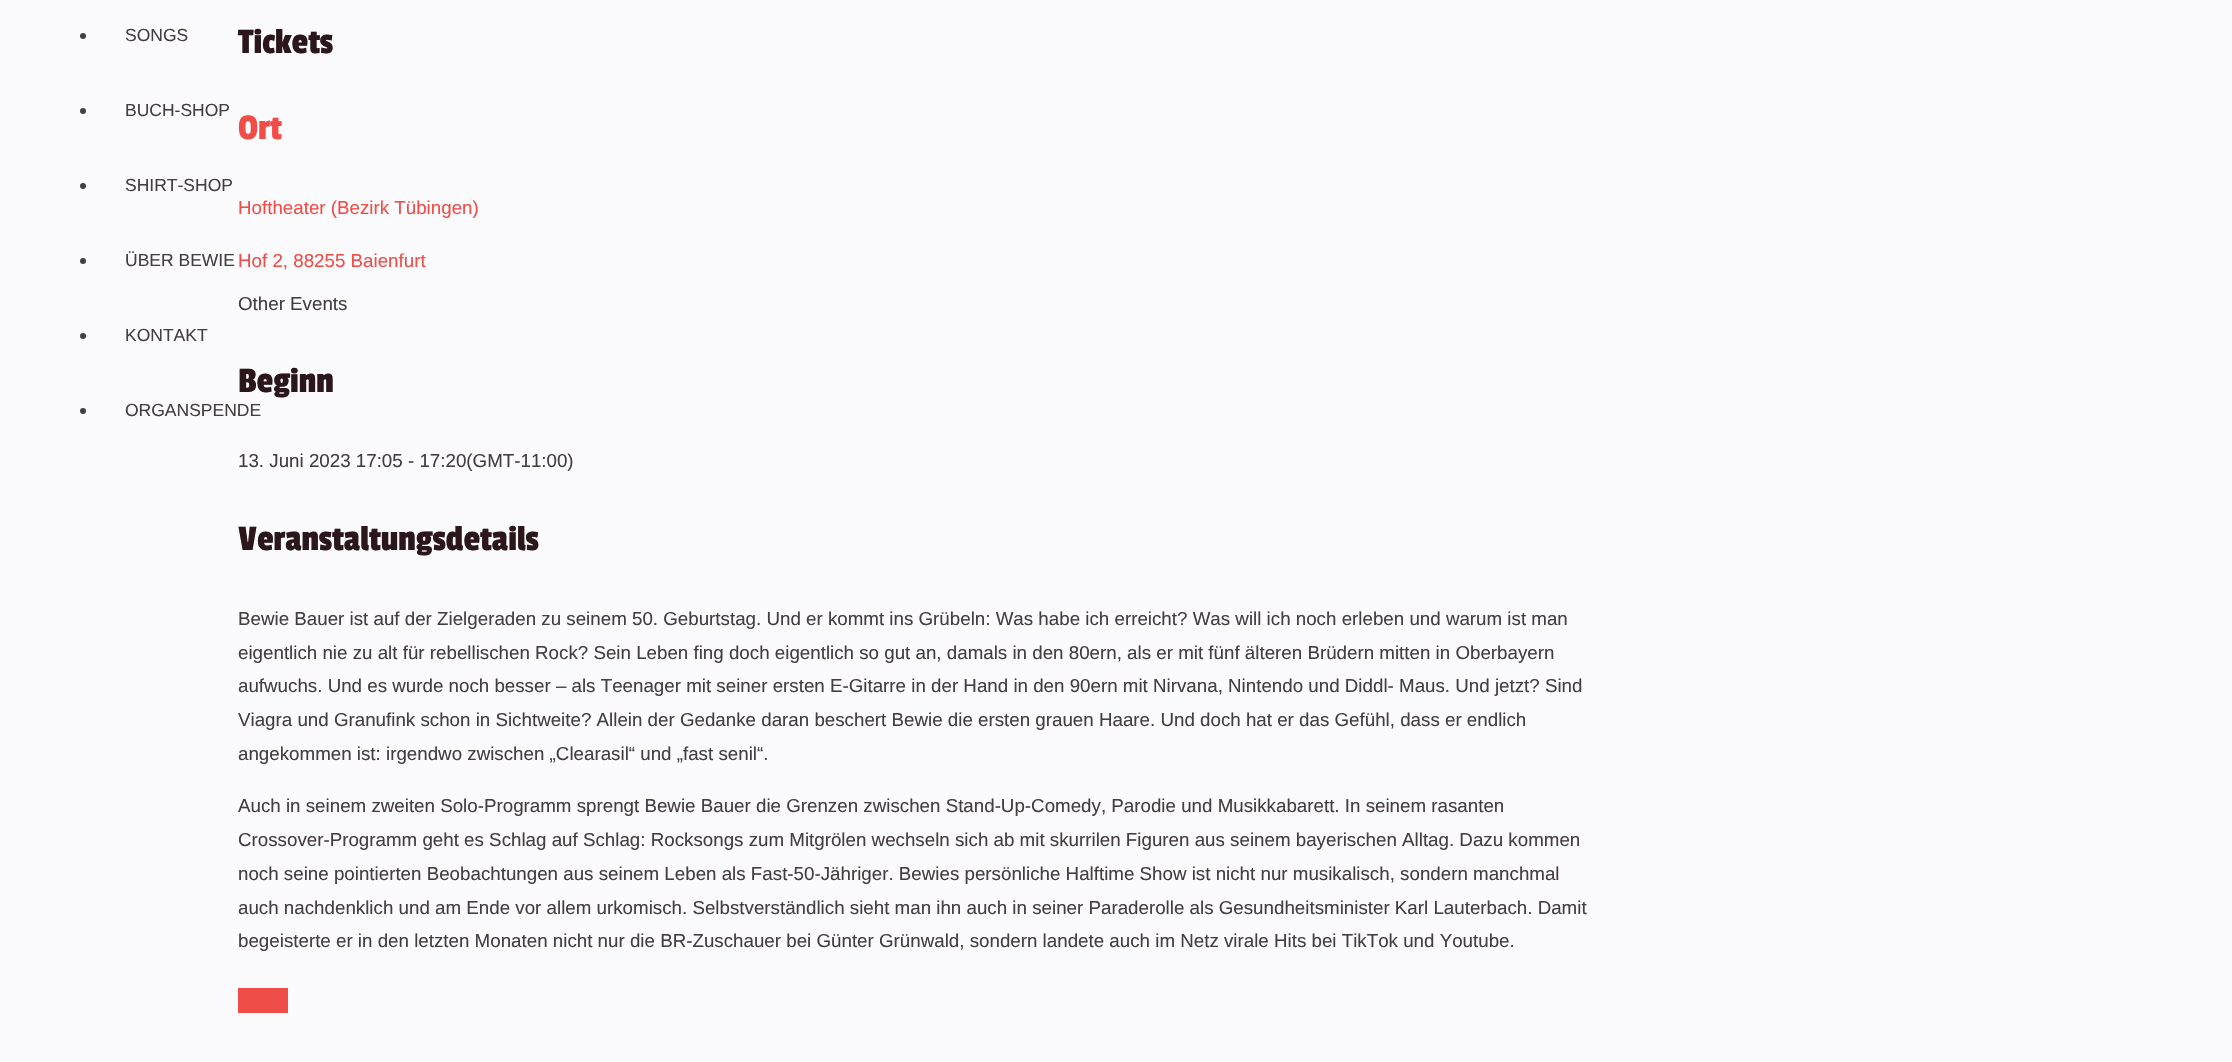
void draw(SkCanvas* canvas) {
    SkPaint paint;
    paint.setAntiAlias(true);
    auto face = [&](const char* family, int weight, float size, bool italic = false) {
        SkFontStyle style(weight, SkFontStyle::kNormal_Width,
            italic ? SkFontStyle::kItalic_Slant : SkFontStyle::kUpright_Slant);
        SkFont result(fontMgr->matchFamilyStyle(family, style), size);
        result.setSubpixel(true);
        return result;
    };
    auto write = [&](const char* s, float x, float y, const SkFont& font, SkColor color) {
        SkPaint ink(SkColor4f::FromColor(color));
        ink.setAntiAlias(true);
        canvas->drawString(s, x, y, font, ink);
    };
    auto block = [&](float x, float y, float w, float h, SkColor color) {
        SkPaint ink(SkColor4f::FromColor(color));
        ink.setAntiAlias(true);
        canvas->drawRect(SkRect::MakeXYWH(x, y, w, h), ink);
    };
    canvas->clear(SkColorSetRGB(251, 251, 253));
    paint.setColor(SkColorSetRGB(69, 62, 62));
    canvas->drawCircle(83, 36, 3, paint);
    auto kFont1 = face("Liberation Sans", 400, 17.5f);
    write("SONGS", 125, 41, kFont1, SkColorSetRGB(69, 62, 62));
    canvas->drawCircle(83, 111, 3, paint);
    write("BUCH-SHOP", 125, 116, kFont1, SkColorSetRGB(69, 62, 62));
    canvas->drawCircle(83, 186, 3, paint);
    write("SHIRT-SHOP", 125, 191, kFont1, SkColorSetRGB(69, 62, 62));
    canvas->drawCircle(83, 261, 3, paint);
    write("ÜBER BEWIE", 125, 266, kFont1, SkColorSetRGB(69, 62, 62));
    canvas->drawCircle(83, 336, 3, paint);
    write("KONTAKT", 125, 341, kFont1, SkColorSetRGB(69, 62, 62));
    canvas->drawCircle(83, 411, 3, paint);
    write("ORGANSPENDE", 125, 416, kFont1, SkColorSetRGB(69, 62, 62));
    auto kFont2 = face("Passion One", 400, 37.5f);
    write("Tickets", 238, 53, kFont2, SkColorSetRGB(43, 22, 27));
    write("Ort", 238, 139, kFont2, SkColorSetRGB(239, 77, 72));
    auto kFont3 = face("Liberation Sans", 400, 18.75f);
    write("Hoftheater (Bezirk Tübingen)", 238, 214, kFont3, SkColorSetRGB(239, 77, 72));
    write("Hof 2, 88255 Baienfurt", 238, 267, kFont3, SkColorSetRGB(239, 77, 72));
    write("Other Events", 238, 310, kFont3, SkColorSetRGB(69, 62, 62));
    write("Beginn", 238, 392, kFont2, SkColorSetRGB(43, 22, 27));
    write("13. Juni 2023 17:05 - 17:20(GMT-11:00)", 238, 467, kFont3, SkColorSetRGB(69, 62, 62));
    write("Veranstaltungsdetails", 238, 550, kFont2, SkColorSetRGB(43, 22, 27));
    write("Bewie Bauer ist auf der Zielgeraden zu seinem 50. Geburtstag. Und er kommt ins Grübeln: Was habe ich erreicht? Was will ich noch erleben und warum ist man", 238, 625, kFont3, SkColorSetRGB(69, 62, 62));
    write("eigentlich nie zu alt für rebellischen Rock? Sein Leben fing doch eigentlich so gut an, damals in den 80ern, als er mit fünf älteren Brüdern mitten in Oberbayern", 238, 659, kFont3, SkColorSetRGB(69, 62, 62));
    write("aufwuchs. Und es wurde noch besser – als Teenager mit seiner ersten E-Gitarre in der Hand in den 90ern mit Nirvana, Nintendo und Diddl- Maus. Und jetzt? Sind", 238, 692, kFont3, SkColorSetRGB(69, 62, 62));
    write("Viagra und Granufink schon in Sichtweite? Allein der Gedanke daran beschert Bewie die ersten grauen Haare. Und doch hat er das Gefühl, dass er endlich", 238, 726, kFont3, SkColorSetRGB(69, 62, 62));
    write("angekommen ist: irgendwo zwischen „Clearasil“ und „fast senil“.", 238, 760, kFont3, SkColorSetRGB(69, 62, 62));
    write("Auch in seinem zweiten Solo-Programm sprengt Bewie Bauer die Grenzen zwischen Stand-Up-Comedy, Parodie und Musikkabarett. In seinem rasanten", 238, 812, kFont3, SkColorSetRGB(69, 62, 62));
    write("Crossover-Programm geht es Schlag auf Schlag: Rocksongs zum Mitgrölen wechseln sich ab mit skurrilen Figuren aus seinem bayerischen Alltag. Dazu kommen", 238, 846, kFont3, SkColorSetRGB(69, 62, 62));
    write("noch seine pointierten Beobachtungen aus seinem Leben als Fast-50-Jähriger. Bewies persönliche Halftime Show ist nicht nur musikalisch, sondern manchmal", 238, 880, kFont3, SkColorSetRGB(69, 62, 62));
    write("auch nachdenklich und am Ende vor allem urkomisch. Selbstverständlich sieht man ihn auch in seiner Paraderolle als Gesundheitsminister Karl Lauterbach. Damit", 238, 914, kFont3, SkColorSetRGB(69, 62, 62));
    write("begeisterte er in den letzten Monaten nicht nur die BR-Zuschauer bei Günter Grünwald, sondern landete auch im Netz virale Hits bei TikTok und Youtube.", 238, 947, kFont3, SkColorSetRGB(69, 62, 62));
    block(238, 988, 50, 25, SkColorSetRGB(239, 77, 72));
}
